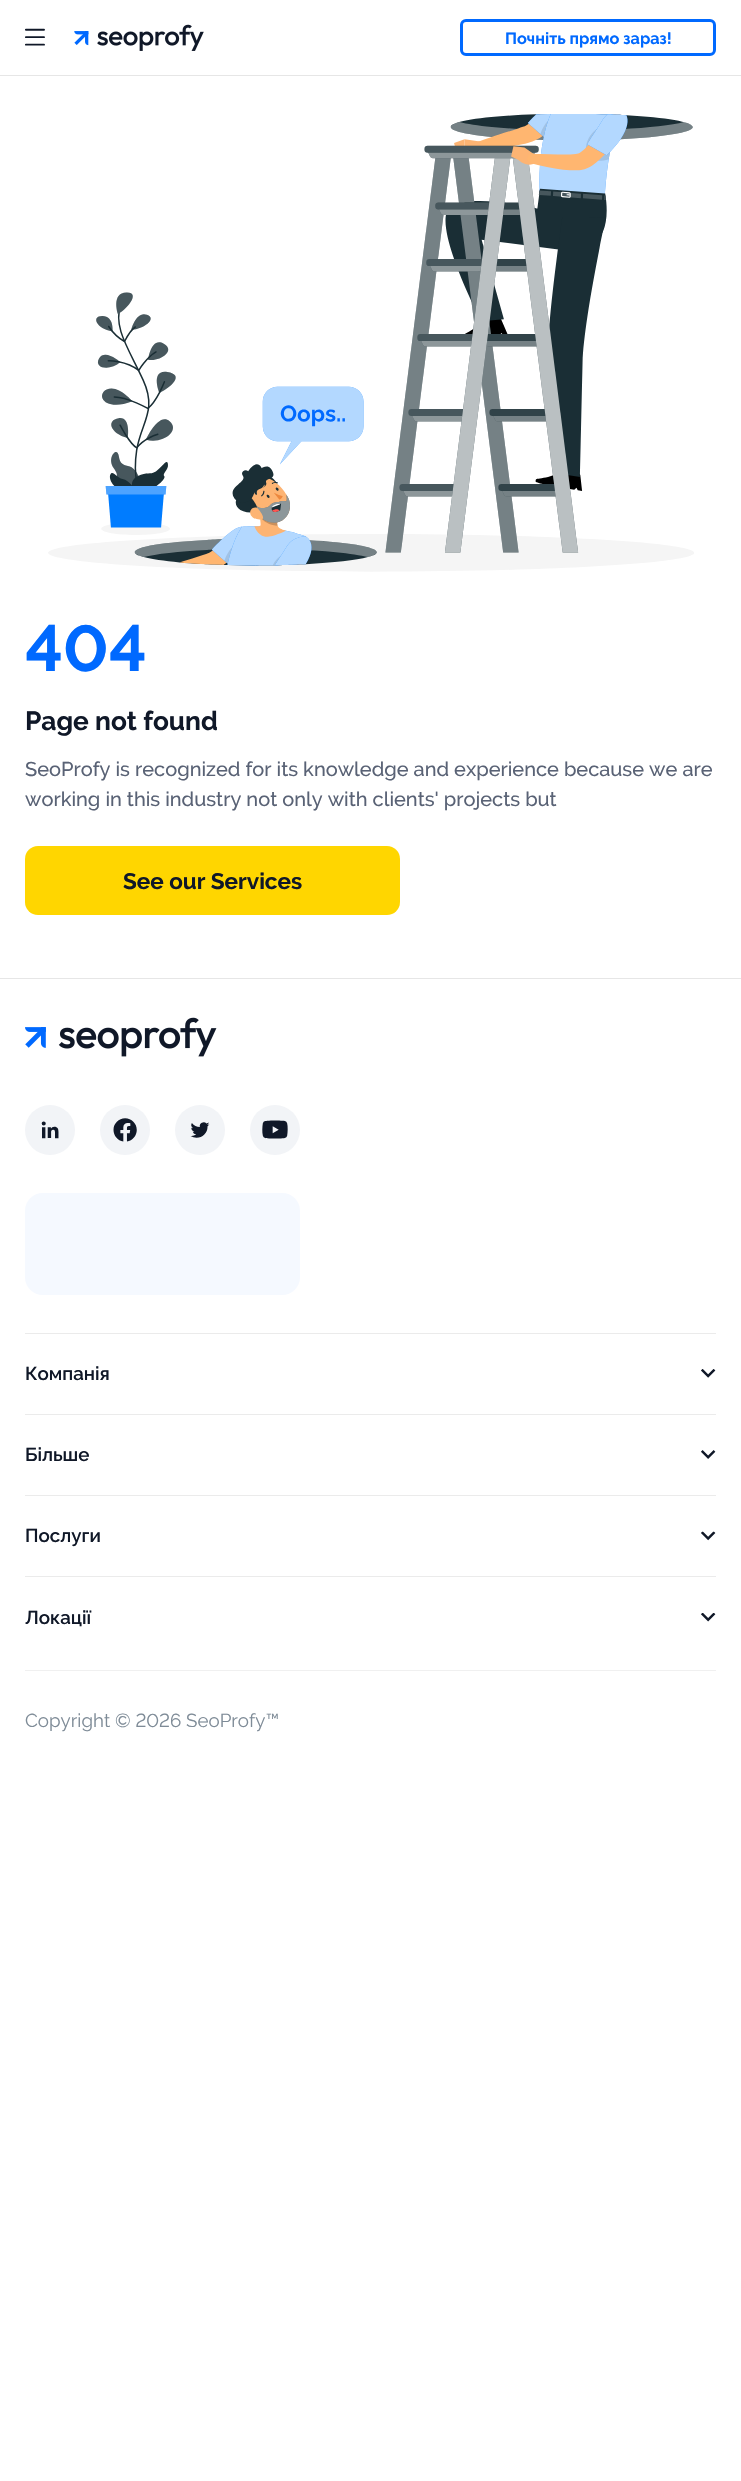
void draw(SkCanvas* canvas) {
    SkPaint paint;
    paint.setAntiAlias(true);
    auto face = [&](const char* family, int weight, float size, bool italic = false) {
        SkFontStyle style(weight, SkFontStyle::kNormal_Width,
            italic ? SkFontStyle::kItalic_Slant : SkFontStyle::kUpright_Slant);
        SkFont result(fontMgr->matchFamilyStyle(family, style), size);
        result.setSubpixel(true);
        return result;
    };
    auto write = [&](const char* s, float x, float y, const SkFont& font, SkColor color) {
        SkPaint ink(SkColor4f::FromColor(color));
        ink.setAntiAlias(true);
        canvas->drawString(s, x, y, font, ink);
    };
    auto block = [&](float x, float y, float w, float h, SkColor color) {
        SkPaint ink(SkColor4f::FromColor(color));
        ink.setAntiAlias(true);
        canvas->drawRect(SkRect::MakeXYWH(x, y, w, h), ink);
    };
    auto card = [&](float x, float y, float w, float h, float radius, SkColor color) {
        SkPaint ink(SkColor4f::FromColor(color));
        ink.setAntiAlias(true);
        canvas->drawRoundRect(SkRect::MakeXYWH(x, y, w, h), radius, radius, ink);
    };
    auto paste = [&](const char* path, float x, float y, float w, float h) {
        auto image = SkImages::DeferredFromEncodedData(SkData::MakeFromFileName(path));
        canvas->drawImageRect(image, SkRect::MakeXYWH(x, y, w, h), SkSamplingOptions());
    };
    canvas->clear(SK_ColorWHITE);
    block(0, 75, 741, 1, SkColorSetRGB(230, 230, 230));
    paste("pic1.png", 25, 28, 20, 18);
    paste("pic2.png", 74, 24, 130, 27);
    paint.setStyle(SkPaint::kStroke_Style);
    paint.setStrokeWidth(3);
    paint.setColor(SkColorSetRGB(0, 105, 255));
    canvas->drawRoundRect(SkRect::MakeXYWH(461.5f, 20.5f, 253, 34), 4.5f, 4.5f, paint);
    auto kFont1 = face("Raleway", 700, 16.25f);
    write("Почніть прямо зараз!", 505, 44, kFont1, SkColorSetRGB(0, 105, 255));
    paste("pic3.png", 48, 114, 646, 458);
    auto kFont2 = face("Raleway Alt", 700, 65);
    write("404", 25, 671, kFont2, SkColorSetRGB(0, 105, 255));
    auto kFont3 = face("Raleway", 700, 26.25f);
    write("Page not found", 25, 730, kFont3, SkColorSetRGB(16, 24, 40));
    auto kFont4 = face("Raleway", 500, 20);
    write("SeoProfy is recognized for its knowledge and experience because we are", 25, 776, kFont4, SkColorSetRGB(89, 98, 117));
    write("working in this industry not only with clients' projects but", 25, 806, kFont4, SkColorSetRGB(89, 98, 117));
    card(25, 846, 375, 69, 13, SkColorSetRGB(255, 214, 0));
    auto kFont5 = face("Raleway", 700, 22.5f);
    write("See our Services", 123, 889, kFont5, SkColorSetRGB(16, 24, 40));
    block(0, 978, 741, 1, SkColorSetRGB(230, 230, 230));
    block(25, 1670, 691, 1, SkColorSetRGB(240, 240, 240));
    paste("pic4.png", 25, 1017, 192, 40);
    paint.setStyle(SkPaint::kFill_Style);
    paint.setColor(SkColorSetRGB(242, 244, 247));
    canvas->drawCircle(50, 1130, 25, paint);
    paste("pic5.png", 41, 1121, 18, 18);
    canvas->drawCircle(125, 1130, 25, paint);
    paste("pic6.png", 113, 1118, 24, 24);
    canvas->drawCircle(200, 1130, 25, paint);
    paste("pic7.png", 190, 1122, 20, 16);
    canvas->drawCircle(275, 1130, 25, paint);
    paste("pic8.png", 262, 1120, 26, 19);
    card(25, 1193, 275, 102, 18, SkColorSetRGB(245, 249, 255));
    block(25, 1333, 691, 1, SkColorSetRGB(235, 235, 235));
    auto kFont6 = face("Raleway", 600, 18.75f);
    write("Компанія", 25, 1380, kFont6, SkColorSetRGB(16, 24, 40));
    paste("pic9.png", 701, 1369, 15, 9);
    block(25, 1414, 691, 1, SkColorSetRGB(235, 235, 235));
    write("Більше", 25, 1461, kFont6, SkColorSetRGB(16, 24, 40));
    paste("pic10.png", 701, 1450, 15, 9);
    block(25, 1495, 691, 1, SkColorSetRGB(235, 235, 235));
    write("Послуги", 25, 1542, kFont6, SkColorSetRGB(16, 24, 40));
    paste("pic11.png", 701, 1531, 15, 10);
    block(25, 1576, 691, 1, SkColorSetRGB(235, 235, 235));
    write("Локації", 25, 1624, kFont6, SkColorSetRGB(16, 24, 40));
    paste("pic12.png", 701, 1613, 15, 9);
    auto kFont7 = face("Raleway Alt", 400, 18.75f);
    write("Copyright © 2026 SeoProfy™", 25, 1727, kFont7, SkColorSetRGB(126, 139, 151));
}
